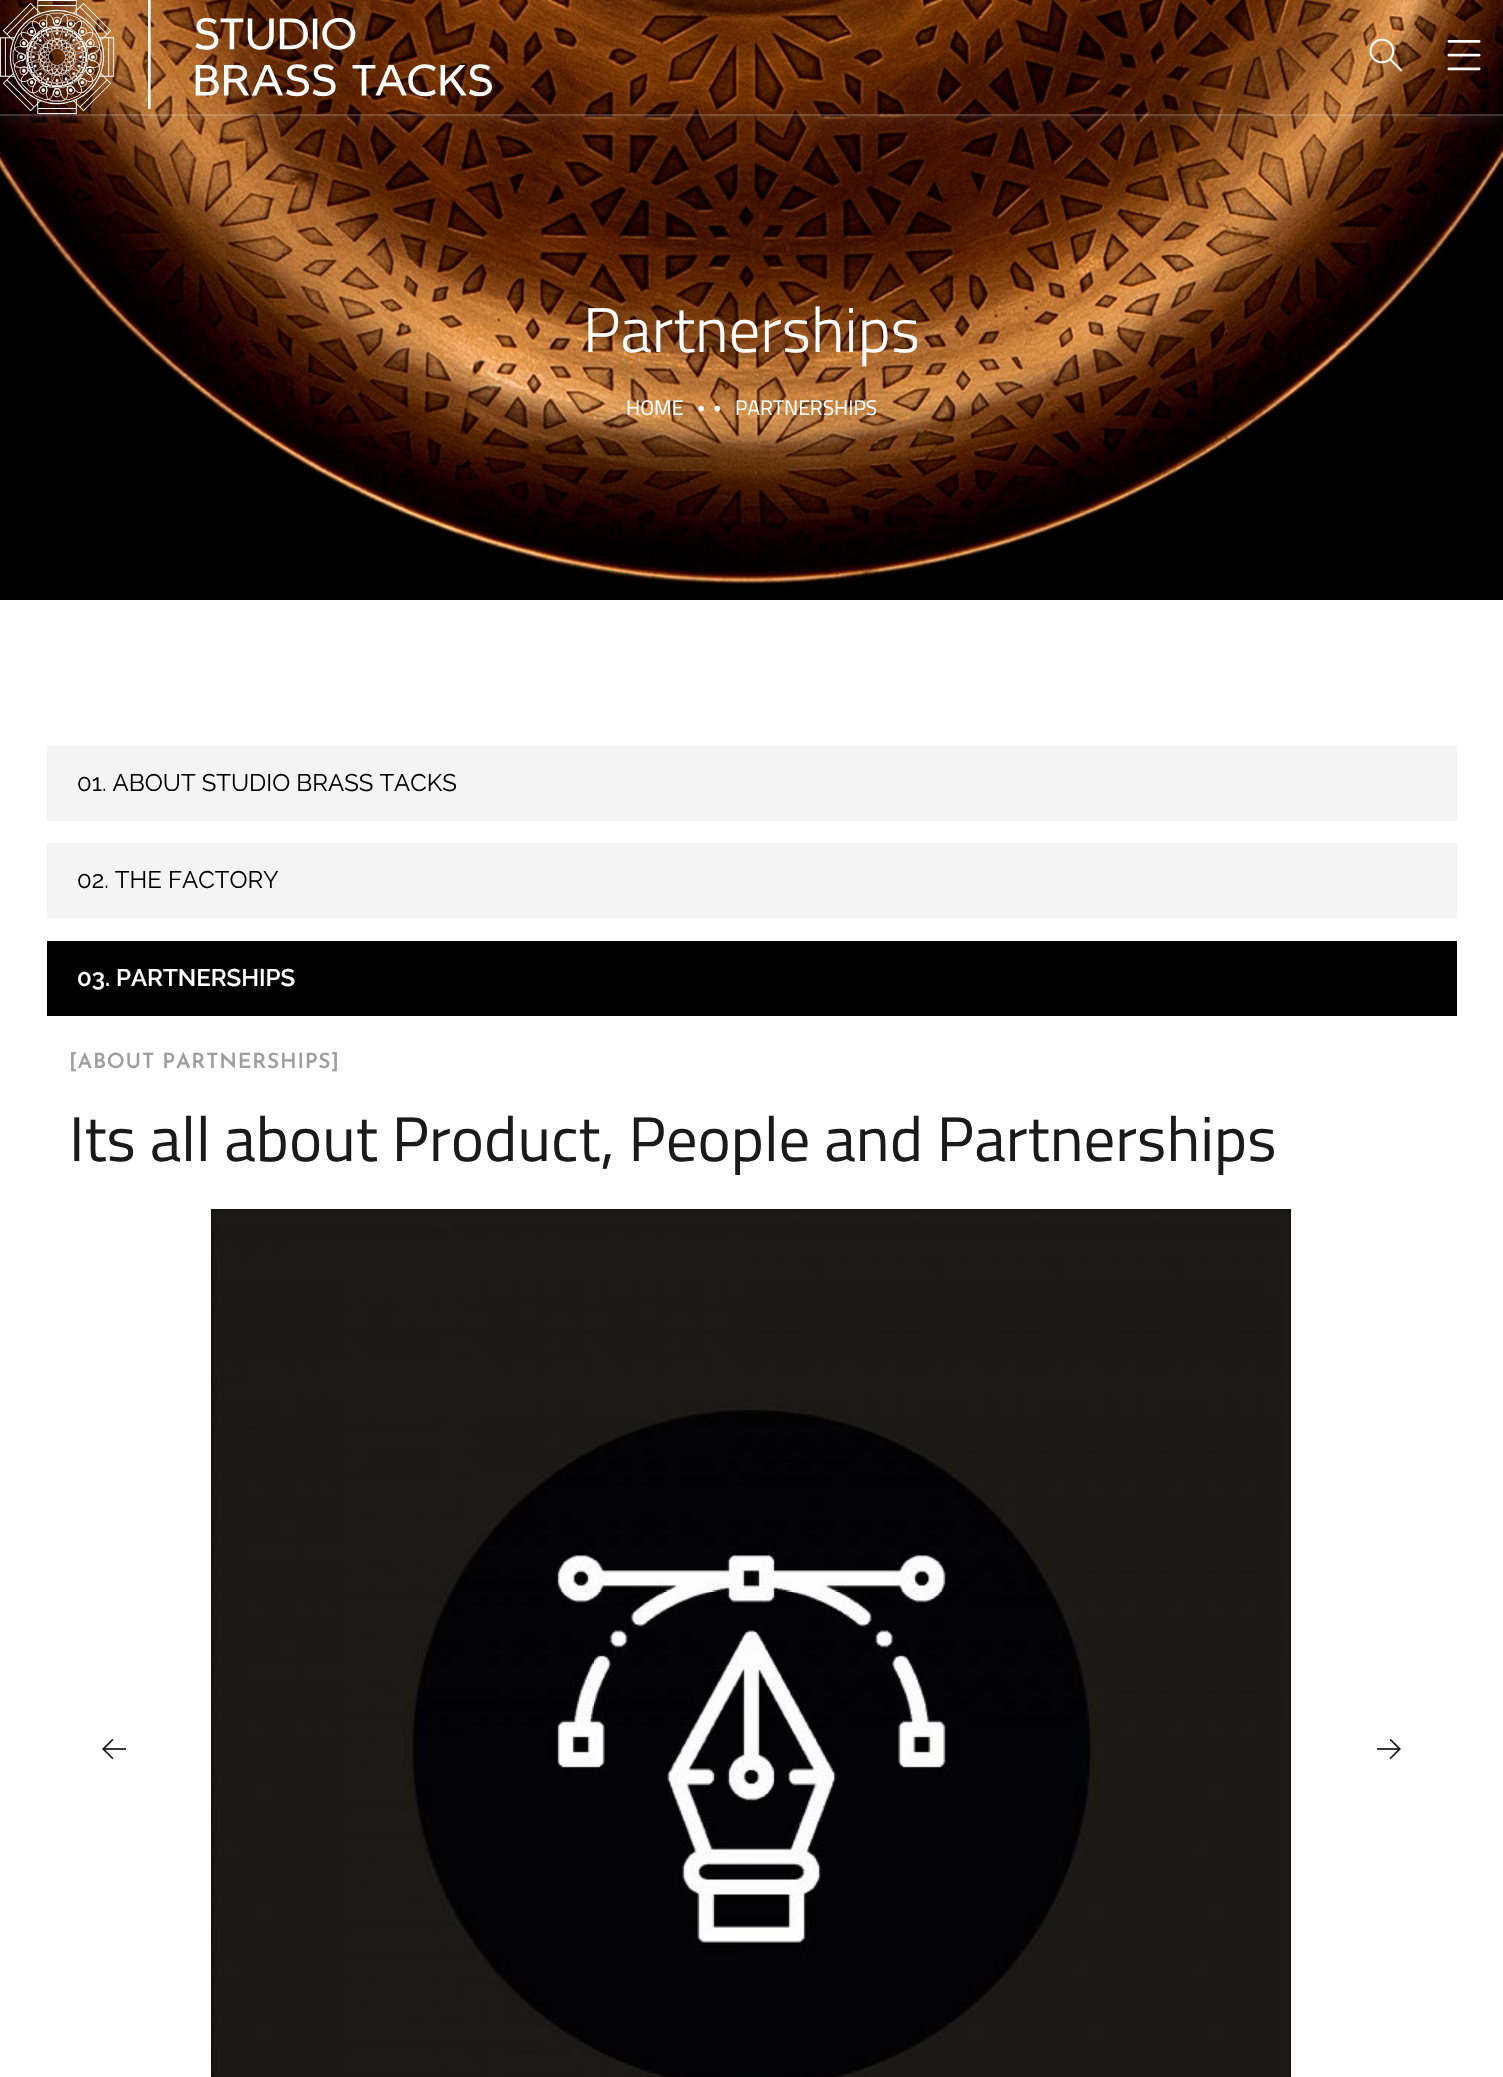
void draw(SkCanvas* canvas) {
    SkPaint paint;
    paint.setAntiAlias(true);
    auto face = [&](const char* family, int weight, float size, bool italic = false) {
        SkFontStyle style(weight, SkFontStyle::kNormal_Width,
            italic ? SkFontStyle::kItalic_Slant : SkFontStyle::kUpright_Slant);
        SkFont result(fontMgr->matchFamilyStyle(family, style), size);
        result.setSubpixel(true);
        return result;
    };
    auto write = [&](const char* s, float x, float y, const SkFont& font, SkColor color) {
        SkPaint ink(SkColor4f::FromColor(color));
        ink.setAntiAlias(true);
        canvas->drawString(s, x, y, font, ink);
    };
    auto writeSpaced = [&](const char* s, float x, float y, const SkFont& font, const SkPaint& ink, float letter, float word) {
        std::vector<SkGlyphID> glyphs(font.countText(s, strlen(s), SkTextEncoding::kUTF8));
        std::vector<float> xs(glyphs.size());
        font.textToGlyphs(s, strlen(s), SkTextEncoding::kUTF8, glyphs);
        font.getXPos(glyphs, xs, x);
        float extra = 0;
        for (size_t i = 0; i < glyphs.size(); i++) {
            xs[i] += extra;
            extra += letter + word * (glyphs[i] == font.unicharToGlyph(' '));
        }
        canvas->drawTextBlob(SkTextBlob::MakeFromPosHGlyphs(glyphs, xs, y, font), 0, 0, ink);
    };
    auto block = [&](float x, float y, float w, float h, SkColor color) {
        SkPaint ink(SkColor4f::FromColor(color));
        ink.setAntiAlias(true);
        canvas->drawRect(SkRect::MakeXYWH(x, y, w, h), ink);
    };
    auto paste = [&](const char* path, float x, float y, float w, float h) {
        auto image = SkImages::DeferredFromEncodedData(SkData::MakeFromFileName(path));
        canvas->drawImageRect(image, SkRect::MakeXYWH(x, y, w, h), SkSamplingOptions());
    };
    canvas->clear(SK_ColorWHITE);
    paste("pic4.png", 0, 0, 1503, 600);
    canvas->save();
    canvas->clipPath(SkPathBuilder(SkPathFillType::kEvenOdd).moveTo(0, 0).lineTo(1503, 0).lineTo(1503, 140).lineTo(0, 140).close().moveTo(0, 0).lineTo(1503, 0).lineTo(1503, 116).lineTo(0, 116).close().detach(), true);
    paint.setColor(SkColorSetARGB(26, 255, 255, 255));
    paint.setMaskFilter(SkMaskFilter::MakeBlur(kNormal_SkBlurStyle, 7.5f));
    canvas->drawRect(SkRect::MakeXYWH(2, 0, 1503, 116), paint);
    paint.setMaskFilter(nullptr);
    canvas->restore();
    block(0, 114, 1503, 2, SkColorSetARGB(51, 255, 255, 255));
    paste("pic1.png", 0, 0, 492, 114);
    paste("pic2.png", 1369, 38, 34, 34);
    paste("pic3.png", 1447, 40, 34, 31);
    auto kFont1 = face("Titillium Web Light", 300, 63);
    write("Partnerships", 583, 352, kFont1, SK_ColorWHITE);
    auto kFont2 = face("Titillium Web", 400, 21);
    write("HOME", 626, 415, kFont2, SK_ColorWHITE);
    auto kFont3 = face("Josefin Sans", 500, 21);
    paint.setColor(SK_ColorWHITE);
    writeSpaced("••", 696, 415, kFont3, paint, 6, 0);
    write("PARTNERSHIPS", 735, 415, kFont2, SK_ColorWHITE);
    block(47, 746, 1410, 75, SkColorSetRGB(244, 244, 244));
    auto kFont4 = face("Raleway", 400, 24);
    write("01. ABOUT STUDIO BRASS TACKS", 77, 791, kFont4, SK_ColorBLACK);
    block(47, 843, 1410, 75, SkColorSetRGB(244, 244, 244));
    write("02. THE FACTORY", 77, 888, kFont4, SK_ColorBLACK);
    block(47, 941, 1410, 75, SK_ColorBLACK);
    auto kFont5 = face("Raleway", 600, 24);
    write("03. PARTNERSHIPS", 77, 986, kFont5, SK_ColorWHITE);
    auto kFont6 = face("Josefin Sans", 600, 21);
    paint.setColor(SkColorSetRGB(159, 158, 158));
    writeSpaced("[ABOUT PARTNERSHIPS]", 69, 1068, kFont6, paint, 0.75f, 0);
    auto kFont7 = face("Titillium Web", 400, 63);
    write("Its all about Product, People and Partnerships", 69, 1161, kFont7, SkColorSetRGB(26, 26, 26));
    paste("pic5.png", 102, 1738, 24, 22);
    paste("pic6.png", 211, 1209, 1080, 868);
    paste("pic7.png", 1377, 1738, 24, 22);
}
